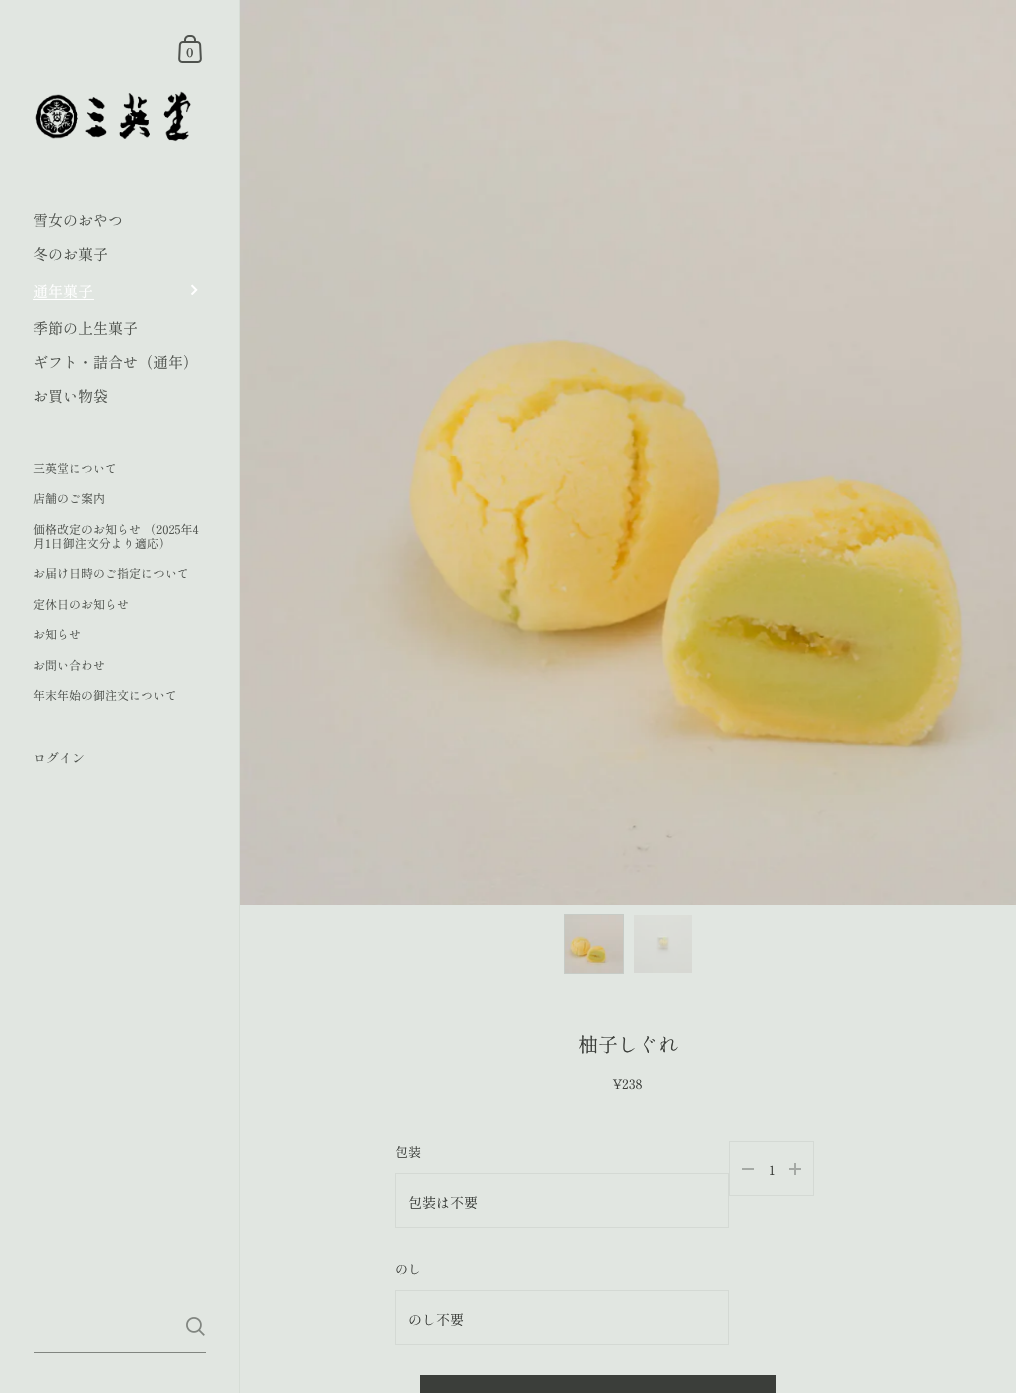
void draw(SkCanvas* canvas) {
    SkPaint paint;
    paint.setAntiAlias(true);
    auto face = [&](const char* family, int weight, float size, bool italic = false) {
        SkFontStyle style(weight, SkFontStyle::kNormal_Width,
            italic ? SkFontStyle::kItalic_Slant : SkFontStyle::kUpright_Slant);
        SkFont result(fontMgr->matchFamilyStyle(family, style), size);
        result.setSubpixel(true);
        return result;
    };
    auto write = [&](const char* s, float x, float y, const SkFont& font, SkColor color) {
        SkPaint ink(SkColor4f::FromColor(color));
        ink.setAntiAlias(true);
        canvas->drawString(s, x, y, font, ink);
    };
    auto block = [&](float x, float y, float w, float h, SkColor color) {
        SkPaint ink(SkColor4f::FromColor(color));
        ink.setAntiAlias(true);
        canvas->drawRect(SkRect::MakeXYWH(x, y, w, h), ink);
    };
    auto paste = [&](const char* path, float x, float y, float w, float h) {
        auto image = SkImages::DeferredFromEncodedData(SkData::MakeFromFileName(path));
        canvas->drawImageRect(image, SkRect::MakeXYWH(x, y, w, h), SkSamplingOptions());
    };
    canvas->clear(SkColorSetRGB(225, 230, 225));
    block(239, 0, 1, 1393, SkColorSetRGB(214, 221, 214));
    paste("pic1.png", 178, 35, 24, 28);
    auto kFont1 = face("Shippori Mincho B1", 700, 12);
    write("0", 186, 57, kFont1, SkColorSetRGB(79, 83, 78));
    paste("pic2.png", 35, 91, 156, 51);
    auto kFont2 = face("Shippori Mincho B1", 400, 15);
    write("雪女のおやつ", 33, 226, kFont2, SkColorSetRGB(79, 83, 78));
    write("冬のお菓子", 33, 260, kFont2, SkColorSetRGB(79, 83, 78));
    write("通年菓子", 33, 297, kFont2, SK_ColorWHITE);
    block(33, 299, 61, 1, SK_ColorWHITE);
    paste("pic3.png", 191, 284, 7, 11);
    write("季節の上生菓子", 33, 334, kFont2, SkColorSetRGB(79, 83, 78));
    write("ギフト・詰合せ（通年）", 33, 368, kFont2, SkColorSetRGB(79, 83, 78));
    write("お買い物袋", 33, 402, kFont2, SkColorSetRGB(79, 83, 78));
    auto kFont3 = face("Shippori Mincho B1", 400, 12);
    write("三英堂について", 33, 473, kFont3, SkColorSetRGB(79, 83, 78));
    write("店舗のご案内", 33, 503, kFont3, SkColorSetRGB(79, 83, 78));
    write("価格改定のお知らせ （2025年4", 33, 534, kFont3, SkColorSetRGB(79, 83, 78));
    write("月1日御注文分より適応）", 33, 548, kFont3, SkColorSetRGB(79, 83, 78));
    write("お届け日時のご指定について", 33, 578, kFont3, SkColorSetRGB(79, 83, 78));
    write("定休日のお知らせ", 33, 609, kFont3, SkColorSetRGB(79, 83, 78));
    write("お知らせ", 33, 639, kFont3, SkColorSetRGB(79, 83, 78));
    write("お問い合わせ", 33, 670, kFont3, SkColorSetRGB(79, 83, 78));
    write("年末年始の御注文について", 33, 700, kFont3, SkColorSetRGB(79, 83, 78));
    auto kFont4 = face("Shippori Mincho B1", 400, 13);
    write("ログイン", 33, 763, kFont4, SkColorSetRGB(79, 83, 78));
    paste("pic4.png", 186, 1317, 19, 19);
    block(34, 1352, 172, 1, SkColorSetRGB(129, 133, 128));
    paste("pic5.png", 240, 0, 776, 905);
    paint.setStyle(SkPaint::kStroke_Style);
    paint.setStrokeWidth(1);
    paint.setColor(SkColorSetRGB(198, 203, 198));
    canvas->drawRect(SkRect::MakeXYWH(564.5f, 914.5f, 59, 59), paint);
    paste("pic6.png", 565, 915, 58, 58);
    paste("pic7.png", 634, 915, 58, 58);
    auto kFont5 = face("Shippori Mincho B1", 400, 20);
    write("柚子しぐれ", 578, 1052, kFont5, SkColorSetRGB(59, 62, 58));
    write("¥238", 613, 1089, kFont4, SkColorSetRGB(59, 62, 58));
    write("包装", 395, 1157, kFont4, SkColorSetRGB(59, 62, 58));
    paint.setColor(SkColorSetRGB(212, 217, 212));
    canvas->drawRect(SkRect::MakeXYWH(395.5f, 1173.5f, 333, 54), paint);
    auto kFont6 = face("Shippori Mincho B1", 400, 14);
    write("包装は不要", 408, 1208, kFont6, SkColorSetRGB(59, 62, 58));
    write("のし", 395, 1274, kFont4, SkColorSetRGB(59, 62, 58));
    canvas->drawRect(SkRect::MakeXYWH(395.5f, 1290.5f, 333, 54), paint);
    write("のし不要", 408, 1325, kFont6, SkColorSetRGB(59, 62, 58));
    canvas->drawRect(SkRect::MakeXYWH(729.5f, 1141.5f, 84, 54), paint);
    block(742, 1168, 12, 2, SkColorSetRGB(165, 170, 165));
    write("1", 769, 1175, kFont4, SkColorSetRGB(59, 62, 58));
    paste("pic8.png", 789, 1163, 12, 12);
    block(420, 1375, 356, 18, SkColorSetRGB(59, 62, 58));
}
